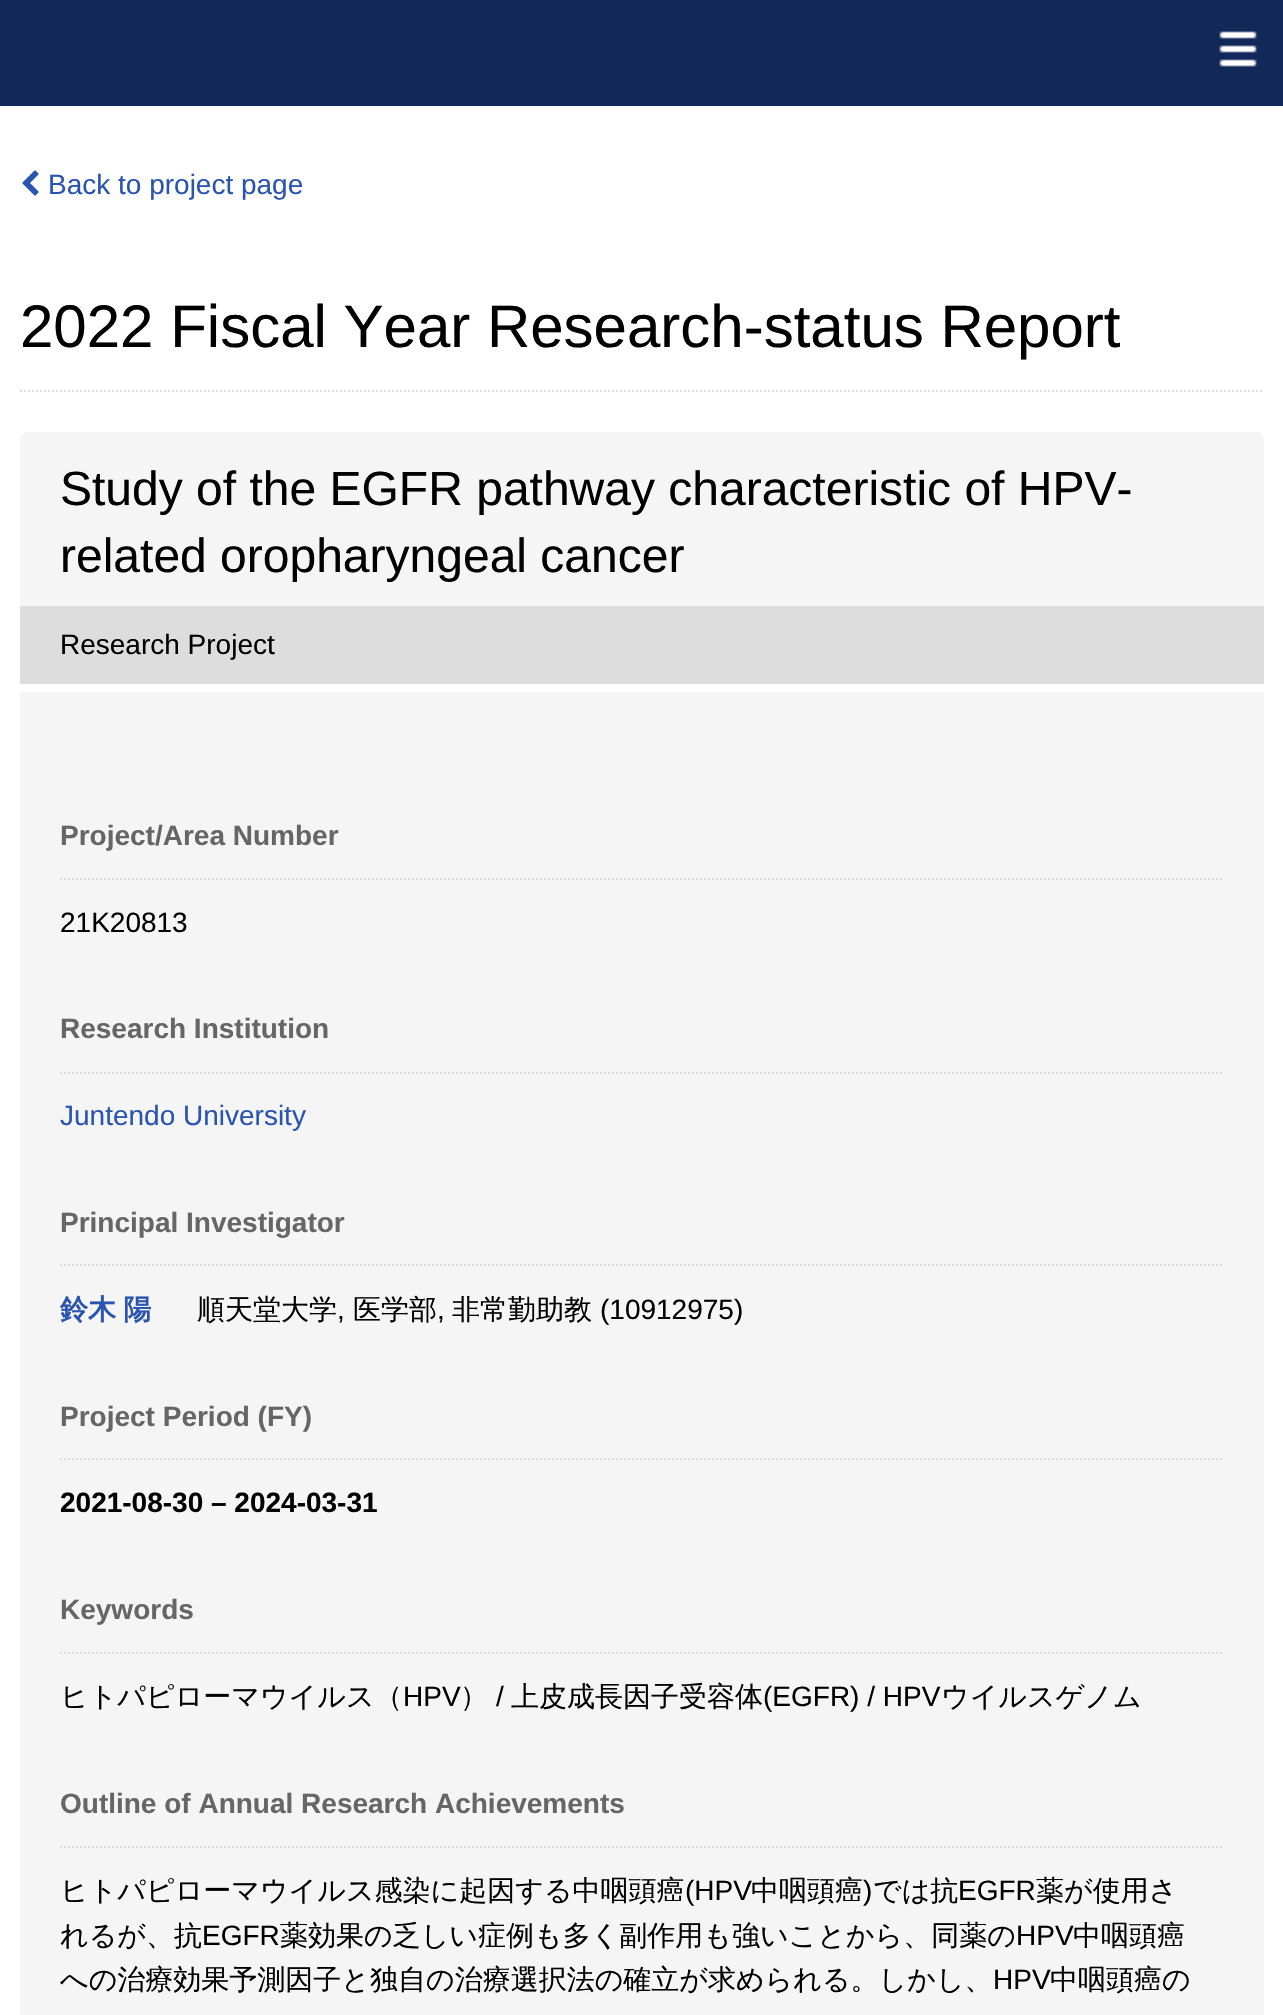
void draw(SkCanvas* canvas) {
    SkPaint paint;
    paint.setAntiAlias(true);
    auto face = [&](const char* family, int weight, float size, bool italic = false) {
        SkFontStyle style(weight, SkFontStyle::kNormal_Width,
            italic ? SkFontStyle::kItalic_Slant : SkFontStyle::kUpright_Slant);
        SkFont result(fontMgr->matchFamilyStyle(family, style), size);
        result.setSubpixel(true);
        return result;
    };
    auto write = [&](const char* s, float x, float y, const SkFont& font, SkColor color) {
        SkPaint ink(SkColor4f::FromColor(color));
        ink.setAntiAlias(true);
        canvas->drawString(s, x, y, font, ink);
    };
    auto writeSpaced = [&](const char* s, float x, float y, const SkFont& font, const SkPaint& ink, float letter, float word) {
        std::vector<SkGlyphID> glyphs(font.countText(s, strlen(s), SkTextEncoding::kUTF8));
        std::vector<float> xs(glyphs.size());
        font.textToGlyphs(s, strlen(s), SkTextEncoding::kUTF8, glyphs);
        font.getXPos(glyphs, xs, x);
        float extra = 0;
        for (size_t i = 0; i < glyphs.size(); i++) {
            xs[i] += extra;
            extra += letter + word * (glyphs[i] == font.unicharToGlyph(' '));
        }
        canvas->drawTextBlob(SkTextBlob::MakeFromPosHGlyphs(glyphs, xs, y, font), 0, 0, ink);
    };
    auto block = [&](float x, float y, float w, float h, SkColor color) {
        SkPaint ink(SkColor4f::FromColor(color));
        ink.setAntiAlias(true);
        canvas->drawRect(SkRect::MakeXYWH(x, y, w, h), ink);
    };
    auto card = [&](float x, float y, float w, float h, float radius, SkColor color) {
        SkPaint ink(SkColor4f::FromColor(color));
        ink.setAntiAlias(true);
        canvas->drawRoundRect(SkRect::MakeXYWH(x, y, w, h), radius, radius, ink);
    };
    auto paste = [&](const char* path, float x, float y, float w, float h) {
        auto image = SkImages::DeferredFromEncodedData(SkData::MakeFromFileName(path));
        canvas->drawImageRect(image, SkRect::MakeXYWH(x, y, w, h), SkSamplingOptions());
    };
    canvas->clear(SK_ColorWHITE);
    block(0, 0, 1283, 106, SkColorSetRGB(18, 40, 88));
    paste("pic1.png", 1219, 31, 38, 36);
    paste("pic2.png", 22, 170, 17, 26);
    auto kFont1 = face("Liberation Sans", 400, 28);
    write("Back to project page", 48, 194, kFont1, SkColorSetRGB(41, 84, 175));
    paint.setStyle(SkPaint::kStroke_Style);
    paint.setStrokeWidth(2);
    paint.setColor(SkColorSetRGB(221, 221, 221));
    paint.setPathEffect(SkDashPathEffect::Make({{2, 2}}, 0));
    canvas->drawPath(SkPathBuilder().moveTo(20, 391).lineTo(1264, 391).detach(), paint);
    paint.setPathEffect(nullptr);
    auto kFont2 = face("Liberation Sans", 400, 60);
    write("2022 Fiscal Year Research-status Report", 20, 347, kFont2, SK_ColorBLACK);
    card(20, 432, 1244, 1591, 8, SkColorSetRGB(245, 245, 245));
    auto kFont3 = face("Liberation Sans", 400, 48);
    write("Study of the EGFR pathway characteristic of HPV-", 60, 505, kFont3, SK_ColorBLACK);
    write("related oropharyngeal cancer", 60, 572, kFont3, SK_ColorBLACK);
    block(20, 606, 1244, 78, SkColorSetRGB(221, 221, 221));
    write("Research Project", 60, 654, kFont1, SK_ColorBLACK);
    block(20, 684, 1244, 8, SK_ColorWHITE);
    paint.setPathEffect(SkDashPathEffect::Make({{2, 2}}, 0));
    canvas->drawPath(SkPathBuilder().moveTo(60, 879).lineTo(1224, 879).detach(), paint);
    paint.setPathEffect(nullptr);
    auto kFont4 = face("Liberation Sans", 700, 28);
    write("Project/Area Number", 60, 845, kFont4, SkColorSetRGB(102, 102, 102));
    write("21K20813", 60, 932, kFont1, SK_ColorBLACK);
    paint.setPathEffect(SkDashPathEffect::Make({{2, 2}}, 0));
    canvas->drawPath(SkPathBuilder().moveTo(60, 1073).lineTo(1224, 1073).detach(), paint);
    paint.setPathEffect(nullptr);
    write("Research Institution", 60, 1038, kFont4, SkColorSetRGB(102, 102, 102));
    write("Juntendo University", 60, 1125, kFont1, SkColorSetRGB(41, 84, 175));
    paint.setPathEffect(SkDashPathEffect::Make({{2, 2}}, 0));
    canvas->drawPath(SkPathBuilder().moveTo(60, 1265).lineTo(1224, 1265).detach(), paint);
    paint.setPathEffect(nullptr);
    write("Principal Investigator", 60, 1232, kFont4, SkColorSetRGB(102, 102, 102));
    auto kFont5 = face("WenQuanYi Zen Hei", 700, 28);
    paint.setStyle(SkPaint::kFill_Style);
    paint.setColor(SkColorSetRGB(41, 84, 175));
    writeSpaced("鈴木 陽", 60, 1319, kFont5, paint, 0, -1);
    auto kFont6 = face("WenQuanYi Zen Hei", 500, 28);
    write("順天堂大学", 197, 1319, kFont6, SK_ColorBLACK);
    write(",", 337, 1319, kFont1, SK_ColorBLACK);
    write("医学部", 353, 1319, kFont6, SK_ColorBLACK);
    write(",", 437, 1319, kFont1, SK_ColorBLACK);
    write("非常勤助教", 452, 1319, kFont6, SK_ColorBLACK);
    write("(10912975)", 600, 1319, kFont1, SK_ColorBLACK);
    paint.setStyle(SkPaint::kStroke_Style);
    paint.setColor(SkColorSetRGB(221, 221, 221));
    paint.setPathEffect(SkDashPathEffect::Make({{2, 2}}, 0));
    canvas->drawPath(SkPathBuilder().moveTo(60, 1459).lineTo(1224, 1459).detach(), paint);
    paint.setPathEffect(nullptr);
    write("Project Period (FY)", 60, 1426, kFont4, SkColorSetRGB(102, 102, 102));
    write("2021-08-30 – 2024-03-31", 60, 1512, kFont4, SK_ColorBLACK);
    paint.setPathEffect(SkDashPathEffect::Make({{2, 2}}, 0));
    canvas->drawPath(SkPathBuilder().moveTo(60, 1653).lineTo(1224, 1653).detach(), paint);
    paint.setPathEffect(nullptr);
    write("Keywords", 60, 1619, kFont4, SkColorSetRGB(102, 102, 102));
    write("ヒトパピローマウイルス（", 60, 1706, kFont6, SK_ColorBLACK);
    write("HPV", 403, 1706, kFont1, SK_ColorBLACK);
    write("）", 460, 1706, kFont6, SK_ColorBLACK);
    write("/", 496, 1706, kFont1, SK_ColorBLACK);
    write("上皮成長因子受容体", 511, 1706, kFont6, SK_ColorBLACK);
    write("(EGFR) / HPV", 763, 1706, kFont1, SK_ColorBLACK);
    write("ウイルスゲノム", 941, 1706, kFont6, SK_ColorBLACK);
    paint.setPathEffect(SkDashPathEffect::Make({{2, 2}}, 0));
    canvas->drawPath(SkPathBuilder().moveTo(60, 1847).lineTo(1224, 1847).detach(), paint);
    paint.setPathEffect(nullptr);
    write("Outline of Annual Research Achievements", 60, 1813, kFont4, SkColorSetRGB(102, 102, 102));
    write("ヒトパピローマウイルス感染に起因する中咽頭癌", 60, 1900, kFont6, SK_ColorBLACK);
    write("(HPV", 685, 1900, kFont1, SK_ColorBLACK);
    write("中咽頭癌", 751, 1900, kFont6, SK_ColorBLACK);
    write(")", 863, 1900, kFont1, SK_ColorBLACK);
    write("では抗", 873, 1900, kFont6, SK_ColorBLACK);
    write("EGFR", 958, 1900, kFont1, SK_ColorBLACK);
    write("薬が使用さ", 1036, 1900, kFont6, SK_ColorBLACK);
    write("れるが、抗", 60, 1945, kFont6, SK_ColorBLACK);
    write("EGFR", 202, 1945, kFont1, SK_ColorBLACK);
    write("薬効果の乏しい症例も多く副作用も強いことから、同薬の", 280, 1945, kFont6, SK_ColorBLACK);
    write("HPV", 1016, 1945, kFont1, SK_ColorBLACK);
    write("中咽頭癌", 1073, 1945, kFont6, SK_ColorBLACK);
    write("への治療効果予測因子と独自の治療選択法の確立が求められる。しかし、", 60, 1989, kFont6, SK_ColorBLACK);
    write("HPV", 993, 1989, kFont1, SK_ColorBLACK);
    write("中咽頭癌の", 1050, 1989, kFont6, SK_ColorBLACK);
}
